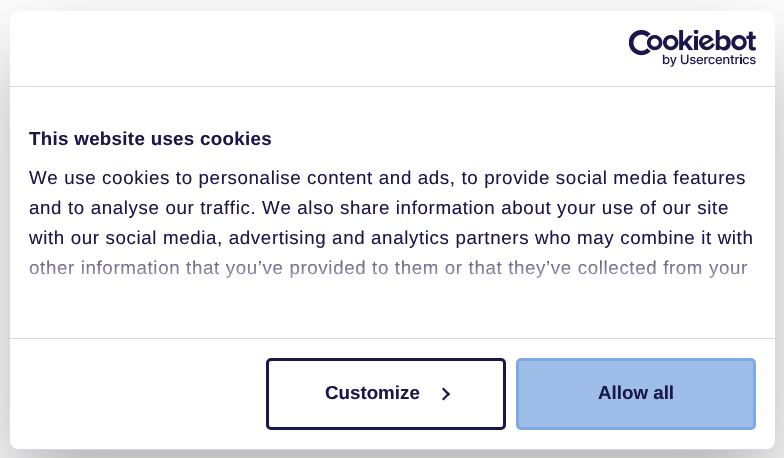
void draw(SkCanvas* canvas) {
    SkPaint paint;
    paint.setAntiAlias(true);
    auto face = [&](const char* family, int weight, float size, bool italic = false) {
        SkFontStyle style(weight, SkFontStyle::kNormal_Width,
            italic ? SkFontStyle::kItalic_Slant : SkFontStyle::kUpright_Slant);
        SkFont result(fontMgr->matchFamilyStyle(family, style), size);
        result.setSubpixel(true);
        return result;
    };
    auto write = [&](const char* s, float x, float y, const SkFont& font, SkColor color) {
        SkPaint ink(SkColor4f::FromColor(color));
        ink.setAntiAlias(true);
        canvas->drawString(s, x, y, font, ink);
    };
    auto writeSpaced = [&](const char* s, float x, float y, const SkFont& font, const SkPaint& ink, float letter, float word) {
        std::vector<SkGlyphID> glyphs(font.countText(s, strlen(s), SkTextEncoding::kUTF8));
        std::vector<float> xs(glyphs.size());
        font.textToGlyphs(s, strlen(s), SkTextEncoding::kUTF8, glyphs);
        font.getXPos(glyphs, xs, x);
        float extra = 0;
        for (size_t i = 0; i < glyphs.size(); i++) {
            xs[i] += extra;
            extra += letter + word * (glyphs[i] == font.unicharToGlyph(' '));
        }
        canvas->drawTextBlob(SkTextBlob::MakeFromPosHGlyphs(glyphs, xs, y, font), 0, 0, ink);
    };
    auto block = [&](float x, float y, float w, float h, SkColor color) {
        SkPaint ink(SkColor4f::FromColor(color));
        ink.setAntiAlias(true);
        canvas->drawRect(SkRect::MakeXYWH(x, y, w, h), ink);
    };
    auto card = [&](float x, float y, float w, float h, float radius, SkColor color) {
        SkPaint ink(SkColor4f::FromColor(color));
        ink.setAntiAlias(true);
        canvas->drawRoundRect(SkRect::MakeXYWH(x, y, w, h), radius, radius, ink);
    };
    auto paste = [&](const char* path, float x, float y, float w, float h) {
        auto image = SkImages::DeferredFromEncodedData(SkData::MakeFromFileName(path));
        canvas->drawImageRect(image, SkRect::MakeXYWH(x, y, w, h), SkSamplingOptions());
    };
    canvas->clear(SK_ColorWHITE);
    paint.setColor(SkColorSetARGB(77, 0, 0, 0));
    paint.setMaskFilter(SkMaskFilter::MakeBlur(kNormal_SkBlurStyle, 42.5f));
    canvas->drawRoundRect(SkRect::MakeXYWH(10, 51, 765, 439), 10, 10, paint);
    paint.setMaskFilter(nullptr);
    card(10, 11, 765, 439, 10, SK_ColorWHITE);
    block(10, 86, 765, 1, SkColorSetRGB(209, 215, 229));
    paste("pic1.png", 629, 30, 127, 37);
    block(10, 338, 765, 1, SkColorSetRGB(209, 215, 229));
    auto kFont1 = face("Liberation Sans", 700, 18.75f);
    paint.setColor(SkColorSetRGB(26, 23, 75));
    writeSpaced("This website uses cookies", 29, 145, kFont1, paint, 0.3f, 0);
    auto kFont2 = face("Liberation Sans", 400, 18.75f);
    writeSpaced("We use cookies to personalise content and ads, to provide social media features", 29, 184, kFont2, paint, 0.62f, 0);
    writeSpaced("and to analyse our traffic. We also share information about your use of our site", 29, 214, kFont2, paint, 0.62f, 0);
    writeSpaced("with our social media, advertising and analytics partners who may combine it with", 29, 244, kFont2, paint, 0.62f, 0);
    writeSpaced("other information that you’ve provided to them or that they’ve collected from your", 29, 274, kFont2, paint, 0.62f, 0);
    {
        const SkColor colors[] = {SK_ColorWHITE, SkColorSetARGB(204, 255, 255, 255), SkColorSetARGB(0, 255, 255, 255)};
        const float stops[] = {0, 0.5f, 1};
        const SkPoint ends[] = {{384, 337}, {384, 243}};
        paint.setShader(SkGradientShader::MakeLinear(ends, colors, stops, 3, SkTileMode::kClamp));
        paint.setAlpha(255);
    }
    canvas->drawRect(SkRect::MakeXYWH(29, 244, 719, 34), paint);
    canvas->save();
    canvas->clipPath(SkPathBuilder().moveTo(20, 11).lineTo(765, 11).cubicTo(770.5f, 11, 775, 15.5f, 775, 21).lineTo(775, 440).cubicTo(775, 445.5f, 770.5f, 450, 765, 450).lineTo(20, 450).cubicTo(14.5f, 450, 10, 445.5f, 10, 440).lineTo(10, 21).cubicTo(10, 15.5f, 14.5f, 11, 20, 11).close().detach(), true);
    block(10, 449, 765, 1, SkColorSetRGB(209, 215, 229));
    canvas->restore();
    paint.setStyle(SkPaint::kStroke_Style);
    paint.setStrokeWidth(3);
    paint.setShader(nullptr);
    paint.setColor(SkColorSetRGB(26, 23, 75));
    canvas->drawRoundRect(SkRect::MakeXYWH(267.5f, 359.5f, 237, 69), 3.5f, 3.5f, paint);
    write("Customize", 325, 399, kFont1, SkColorSetRGB(26, 23, 75));
    paint.setStyle(SkPaint::kFill_Style);
    canvas->drawPath(SkPathBuilder().moveTo(443.5f, 387.5f).lineTo(450, 394).lineTo(448.5f, 396).lineTo(442, 389).close().detach(), paint);
    canvas->drawPath(SkPathBuilder().moveTo(448.5f, 392.5f).lineTo(450, 394).lineTo(443.5f, 400.5f).lineTo(442, 399).close().detach(), paint);
    paint.setColor(SkColorSetRGB(158, 190, 233));
    canvas->drawRoundRect(SkRect::MakeXYWH(517.5f, 359.5f, 237, 69), 3.5f, 3.5f, paint);
    paint.setStyle(SkPaint::kStroke_Style);
    paint.setColor(SkColorSetRGB(126, 169, 226));
    canvas->drawRoundRect(SkRect::MakeXYWH(517.5f, 359.5f, 237, 69), 3.5f, 3.5f, paint);
    write("Allow all", 598, 399, kFont1, SkColorSetRGB(26, 23, 75));
}
